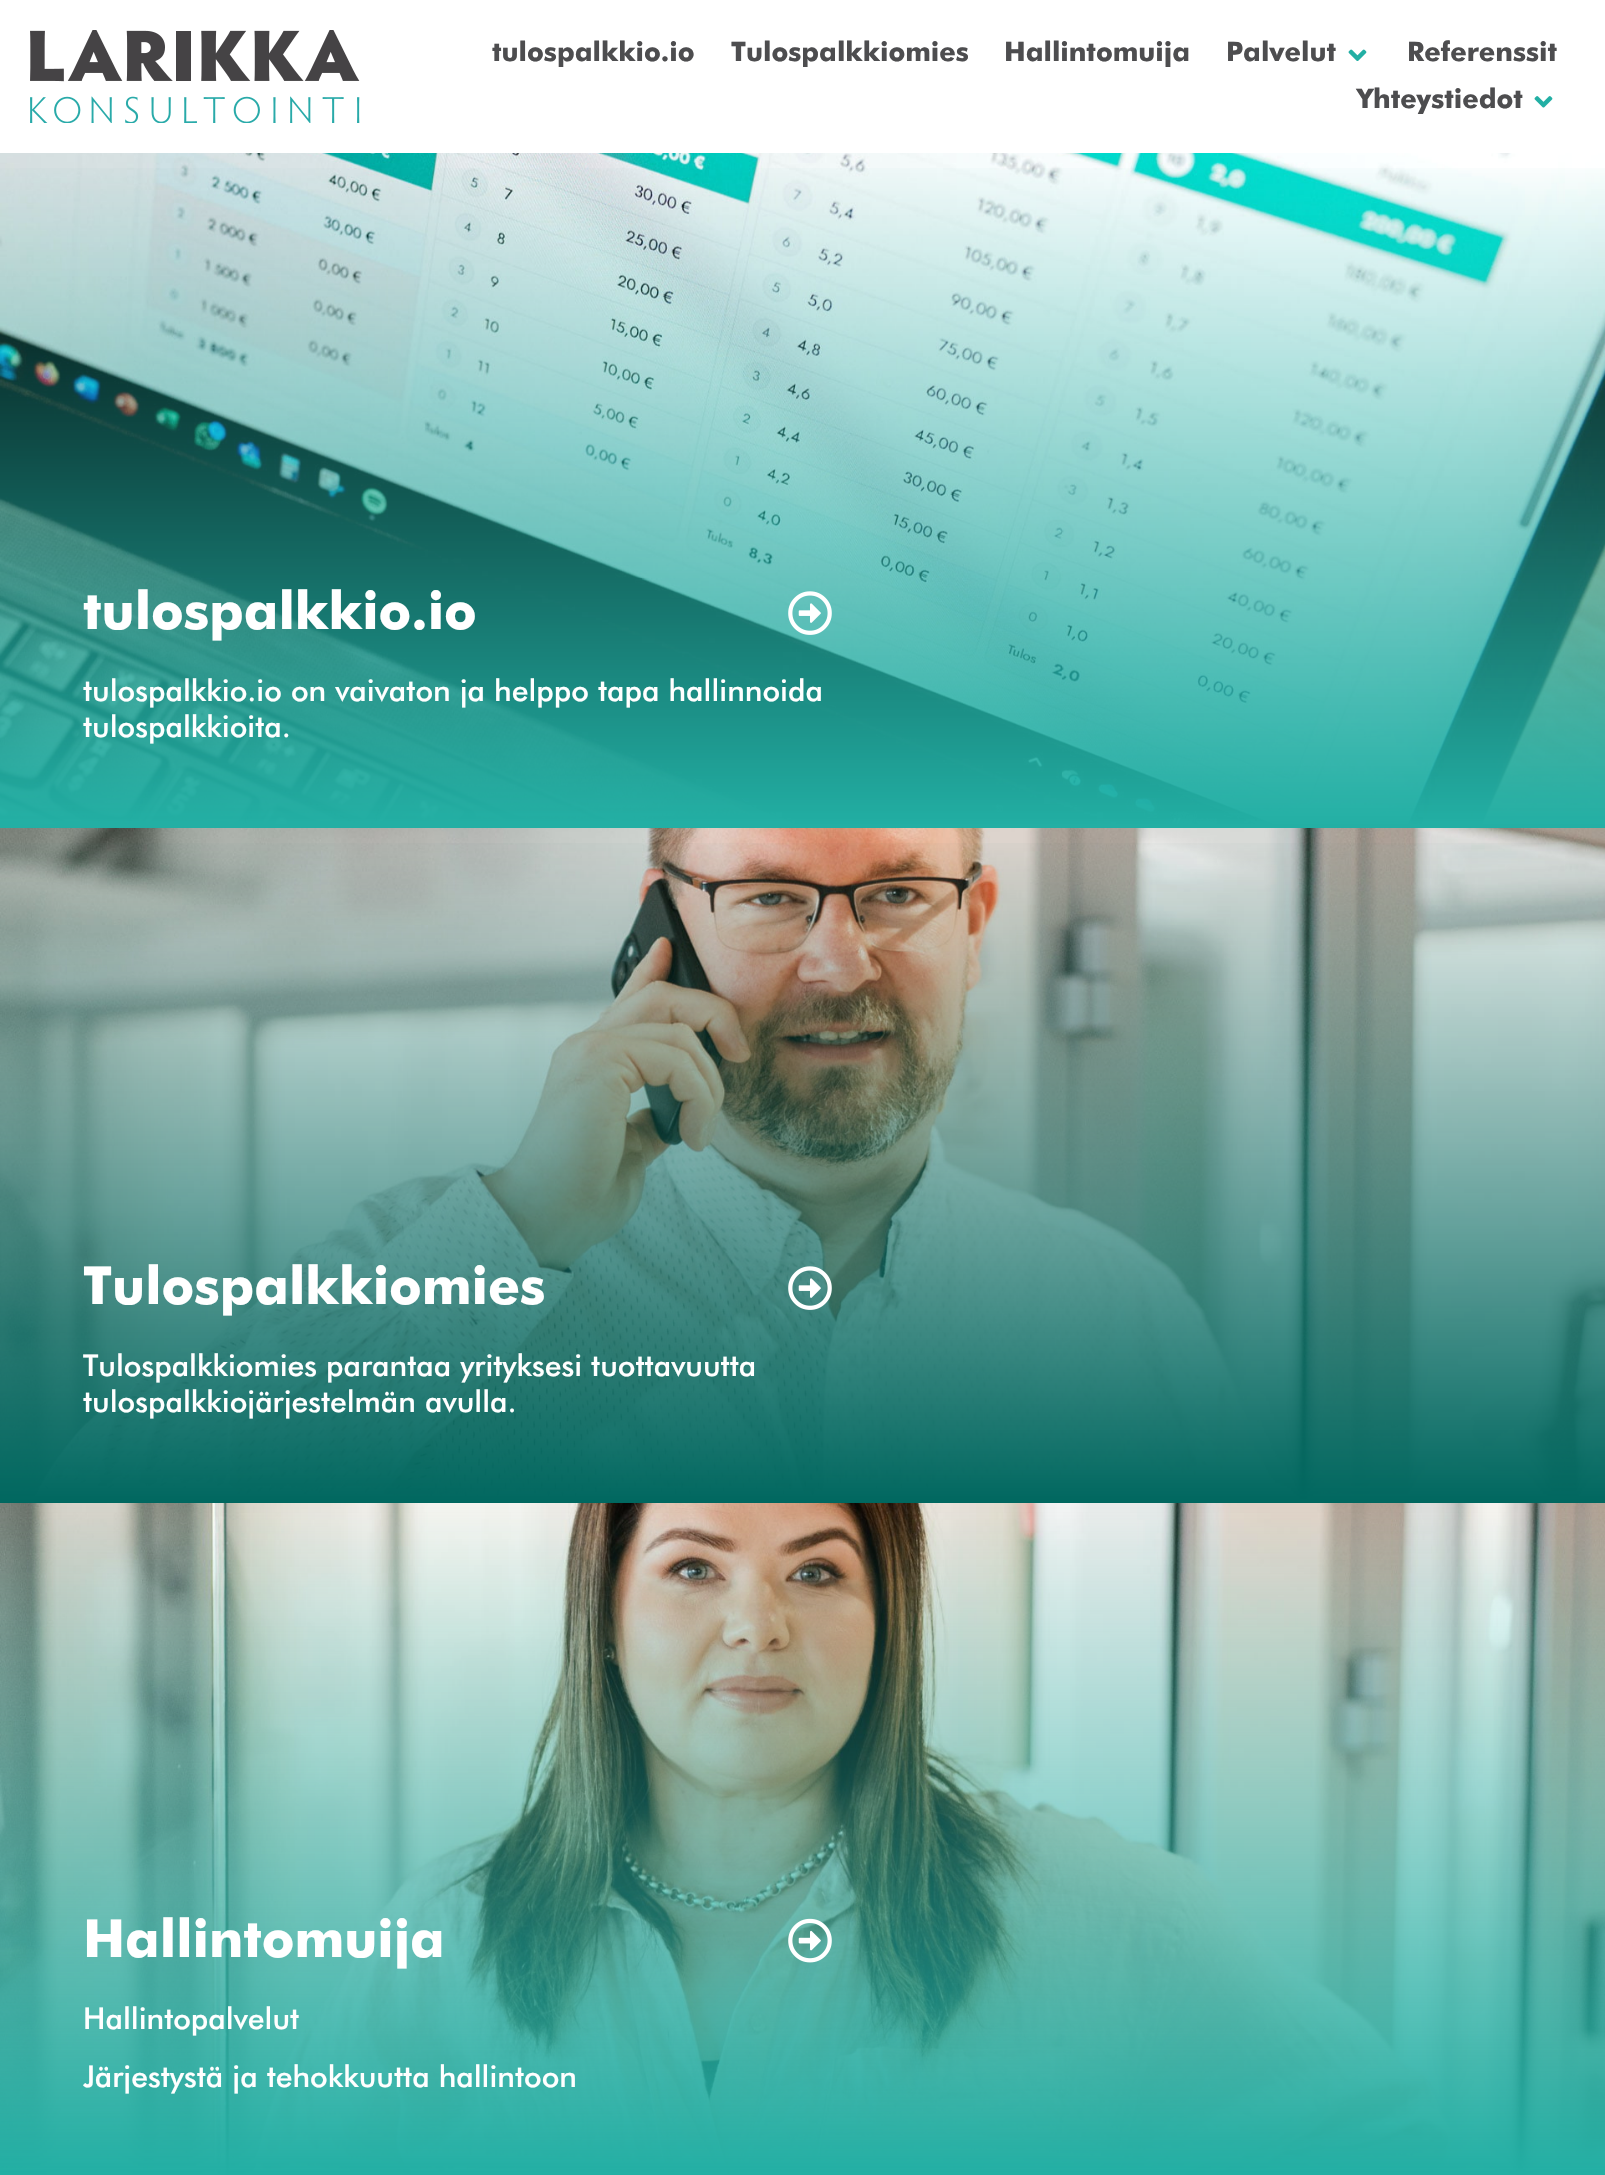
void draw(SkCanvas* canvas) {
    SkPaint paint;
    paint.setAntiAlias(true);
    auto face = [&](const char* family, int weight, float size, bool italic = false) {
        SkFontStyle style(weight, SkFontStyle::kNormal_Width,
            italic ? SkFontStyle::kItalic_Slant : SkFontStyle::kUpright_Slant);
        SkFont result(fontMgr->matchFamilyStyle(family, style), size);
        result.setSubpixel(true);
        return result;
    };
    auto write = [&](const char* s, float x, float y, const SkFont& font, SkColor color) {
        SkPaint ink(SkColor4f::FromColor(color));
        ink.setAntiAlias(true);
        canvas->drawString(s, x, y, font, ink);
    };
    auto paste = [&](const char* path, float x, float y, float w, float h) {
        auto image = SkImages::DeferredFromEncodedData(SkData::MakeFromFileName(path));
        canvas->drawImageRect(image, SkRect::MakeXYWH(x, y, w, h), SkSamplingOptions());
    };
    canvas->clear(SK_ColorWHITE);
    paste("pic1.png", 30, 30, 330, 93);
    auto kFont1 = face("Futura", 700, 27);
    write("tulospalkkio.io", 492, 61, kFont1, SkColorSetRGB(77, 77, 79));
    write("Tulospalkkiomies", 731, 61, kFont1, SkColorSetRGB(77, 77, 79));
    write("Hallintomuija", 1004, 61, kFont1, SkColorSetRGB(77, 77, 79));
    write("Palvelut", 1226, 61, kFont1, SkColorSetRGB(77, 77, 79));
    paste("pic2.png", 1348, 49, 19, 12);
    write("Referenssit", 1407, 61, kFont1, SkColorSetRGB(77, 77, 79));
    write("Yhteystiedot", 1357, 108, kFont1, SkColorSetRGB(77, 77, 79));
    paste("pic3.png", 1534, 96, 19, 12);
    paste("pic4.png", 0, 153, 1605, 671);
    {
        const SkColor colors[] = {SkColorSetARGB(0, 34, 175, 164), SkColorSetRGB(34, 175, 164)};
        const float stops[] = {0, 1};
        const SkPoint ends[] = {{803, 153}, {803, 828}};
        paint.setShader(SkGradientShader::MakeLinear(ends, colors, stops, 2, SkTileMode::kClamp));
        paint.setAlpha(255);
    }
    canvas->drawRect(SkRect::MakeXYWH(0, 168, 1605, 660), paint);
    auto kFont2 = face("Futura", 700, 52.5f);
    write("tulospalkkio.io", 83, 629, kFont2, SK_ColorWHITE);
    paste("pic5.png", 788, 591, 44, 44);
    auto kFont3 = face("Futura", 500, 30);
    write("tulospalkkio.io on vaivaton ja helppo tapa hallinnoida", 83, 701, kFont3, SK_ColorWHITE);
    write("tulospalkkioita.", 83, 737, kFont3, SK_ColorWHITE);
    paste("pic6.png", 0, 828, 1605, 671);
    {
        const SkColor colors[] = {SkColorSetARGB(0, 0, 103, 95), SkColorSetRGB(0, 103, 95)};
        const float stops[] = {0, 1};
        const SkPoint ends[] = {{803, 828}, {803, 1503}};
        paint.setShader(SkGradientShader::MakeLinear(ends, colors, stops, 2, SkTileMode::kClamp));
        paint.setAlpha(255);
    }
    canvas->drawRect(SkRect::MakeXYWH(0, 843, 1605, 660), paint);
    write("Tulospalkkiomies", 83, 1304, kFont2, SK_ColorWHITE);
    paste("pic7.png", 788, 1266, 44, 44);
    write("Tulospalkkiomies parantaa yrityksesi tuottavuutta", 83, 1376, kFont3, SK_ColorWHITE);
    write("tulospalkkiojärjestelmän avulla.", 83, 1412, kFont3, SK_ColorWHITE);
    paste("pic8.png", 0, 1503, 1605, 672);
    write("Hallintomuija", 83, 1957, kFont2, SK_ColorWHITE);
    paste("pic9.png", 788, 1918, 44, 45);
    write("Hallintopalvelut", 83, 2029, kFont3, SK_ColorWHITE);
    write("Järjestystä ja tehokkuutta hallintoon", 83, 2087, kFont3, SK_ColorWHITE);
}
